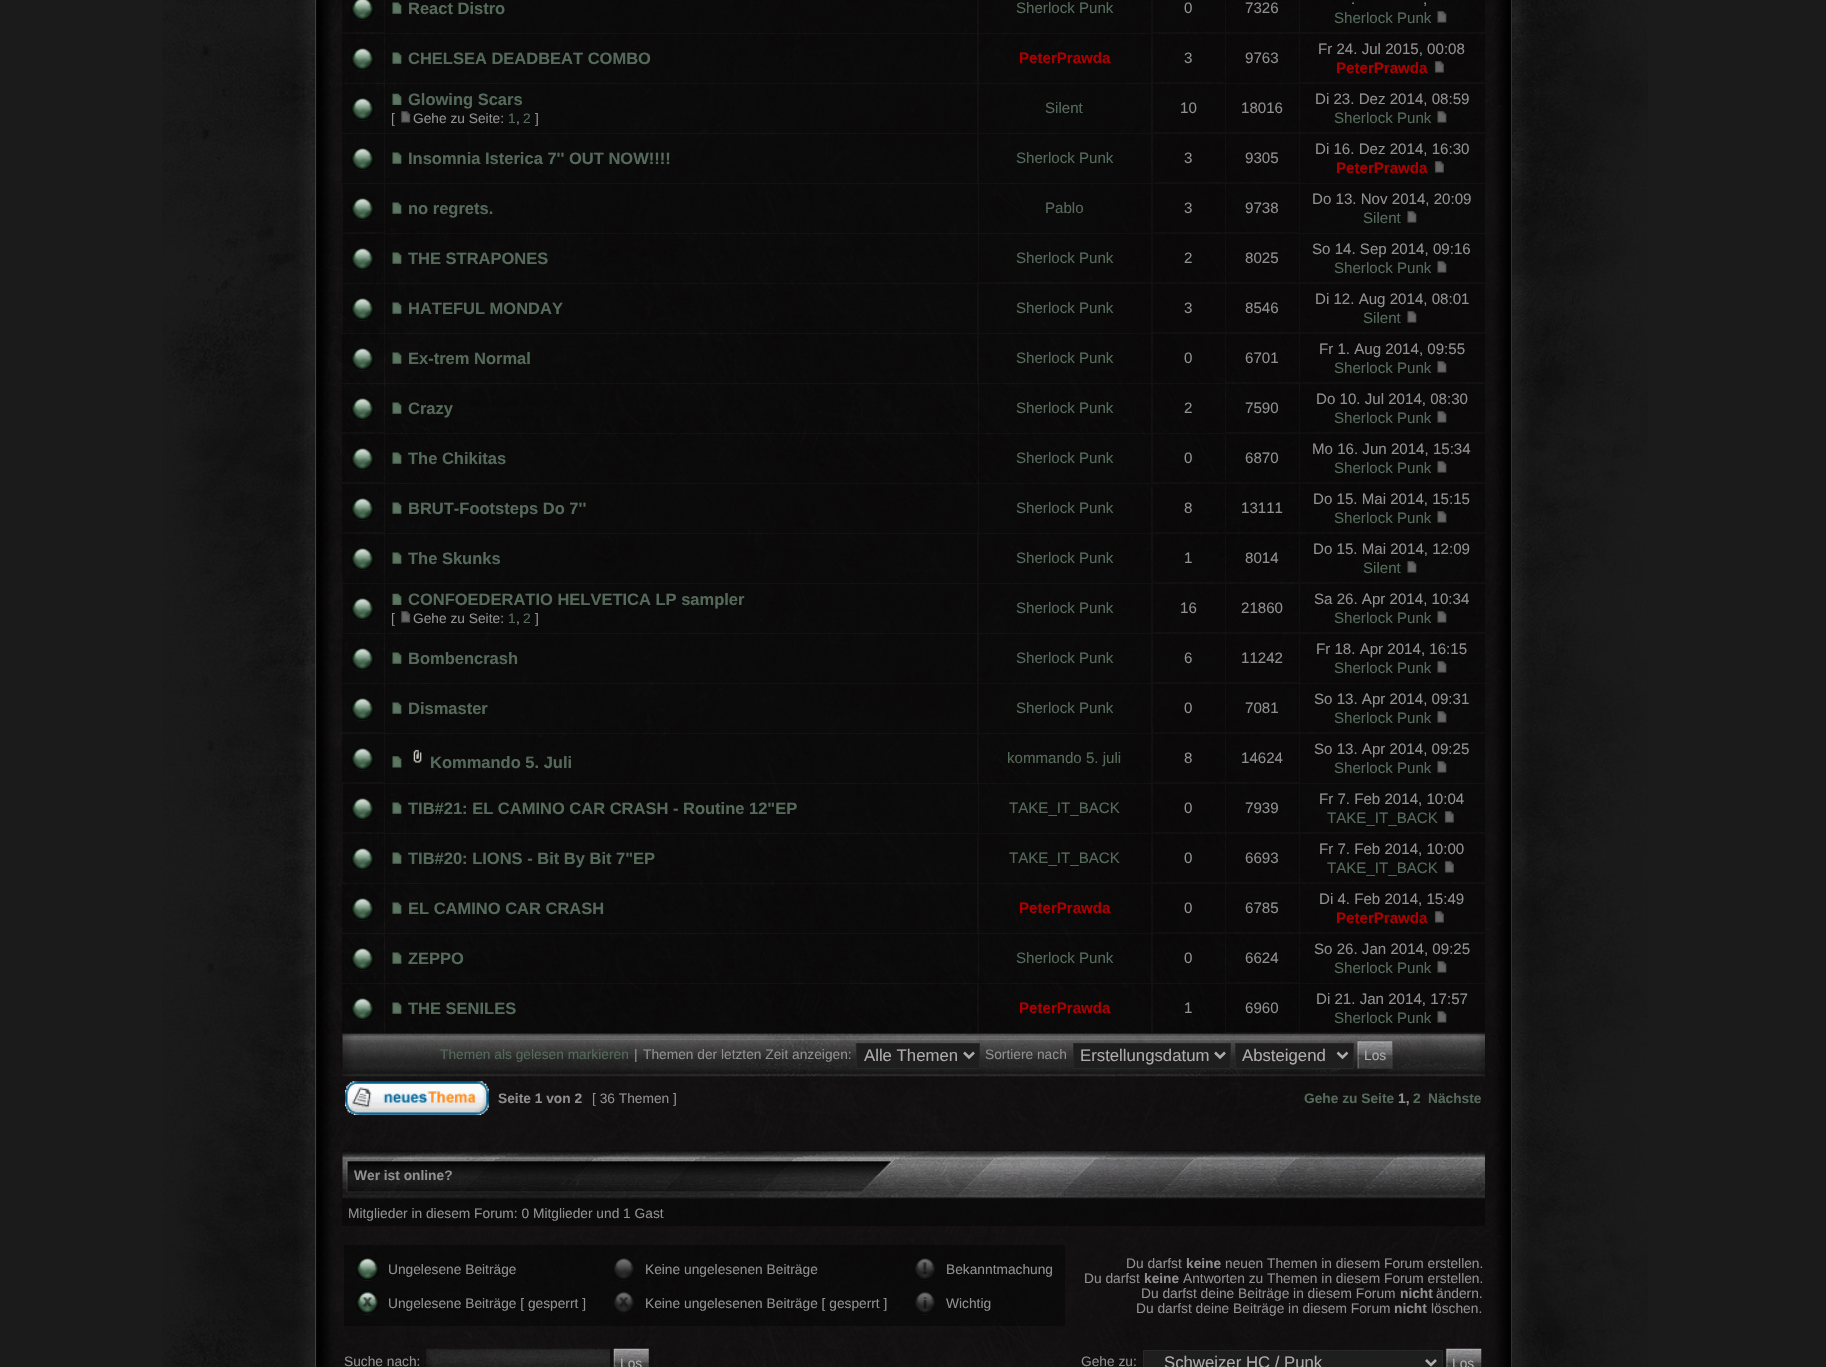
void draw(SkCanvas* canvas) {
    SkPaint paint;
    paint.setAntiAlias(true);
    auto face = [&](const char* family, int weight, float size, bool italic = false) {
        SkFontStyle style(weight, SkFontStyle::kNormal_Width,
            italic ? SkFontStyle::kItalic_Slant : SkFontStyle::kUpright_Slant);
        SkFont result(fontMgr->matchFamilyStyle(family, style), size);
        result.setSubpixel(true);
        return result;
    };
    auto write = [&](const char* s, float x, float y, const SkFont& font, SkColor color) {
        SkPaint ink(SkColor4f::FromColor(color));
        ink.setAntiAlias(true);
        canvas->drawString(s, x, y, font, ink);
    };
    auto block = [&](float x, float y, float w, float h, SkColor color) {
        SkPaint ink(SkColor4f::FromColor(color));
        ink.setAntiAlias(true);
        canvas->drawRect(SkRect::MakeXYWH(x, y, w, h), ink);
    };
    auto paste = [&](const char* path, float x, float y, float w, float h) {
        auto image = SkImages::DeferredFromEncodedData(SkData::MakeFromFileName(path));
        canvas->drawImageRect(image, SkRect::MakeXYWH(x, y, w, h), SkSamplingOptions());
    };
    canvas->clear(SkColorSetRGB(27, 27, 27));
    paste("pic1.png", 162, 0, 1486, 1367);
    block(1511, 0, 1, 1367, SkColorSetRGB(65, 65, 65));
    block(315, 0, 1, 1367, SkColorSetRGB(65, 65, 65));
    paste("pic2.png", 316, 0, 1196, 1367);
    block(342, 0, 42, 32, SkColorSetARGB(102, 0, 0, 0));
    paste("pic3.png", 351, 0, 23, 21);
    block(385, 0, 592, 33, SkColorSetARGB(102, 0, 0, 0));
    paste("pic4.png", 392, 2, 10, 12);
    auto kFont1 = face("Liberation Sans", 700, 16.5f);
    write("React Distro", 408, 14, kFont1, SkColorSetRGB(84, 105, 90));
    block(979, 0, 172, 33, SkColorSetARGB(102, 0, 0, 0));
    auto kFont2 = face("Liberation Sans", 400, 15.1f);
    write("Sherlock Punk", 1016, 13, kFont2, SkColorSetRGB(84, 105, 90));
    block(1153, 0, 72, 32, SkColorSetARGB(102, 0, 0, 0));
    write("0", 1184, 13, kFont2, SkColorSetRGB(143, 143, 143));
    block(1226, 0, 73, 32, SkColorSetARGB(102, 0, 0, 0));
    write("7326", 1245, 13, kFont2, SkColorSetRGB(143, 143, 143));
    block(1300, 0, 185, 32, SkColorSetARGB(102, 0, 0, 0));
    write(".", 1351, 4, kFont2, SkColorSetRGB(143, 143, 143));
    write(",", 1423, 4, kFont2, SkColorSetRGB(143, 143, 143));
    write("Sherlock Punk", 1334, 23, kFont2, SkColorSetRGB(84, 105, 90));
    paste("pic5.png", 1437, 11, 10, 12);
    block(342, 34, 42, 49, SkColorSetARGB(102, 0, 0, 0));
    paste("pic6.png", 351, 48, 23, 23);
    block(385, 34, 592, 49, SkColorSetARGB(102, 0, 0, 0));
    paste("pic7.png", 392, 52, 10, 12);
    write("CHELSEA DEADBEAT COMBO", 408, 64, kFont1, SkColorSetRGB(84, 105, 90));
    block(979, 34, 172, 49, SkColorSetARGB(102, 0, 0, 0));
    auto kFont3 = face("Liberation Sans", 700, 15.1f);
    write("PeterPrawda", 1019, 63, kFont3, SkColorSetRGB(170, 0, 0));
    block(1153, 34, 72, 48, SkColorSetARGB(102, 0, 0, 0));
    write("3", 1184, 63, kFont2, SkColorSetRGB(143, 143, 143));
    block(1226, 34, 73, 49, SkColorSetARGB(102, 0, 0, 0));
    write("9763", 1245, 63, kFont2, SkColorSetRGB(143, 143, 143));
    block(1300, 34, 185, 48, SkColorSetARGB(102, 0, 0, 0));
    write("Fr 24. Jul 2015, 00:08", 1318, 54, kFont2, SkColorSetRGB(143, 143, 143));
    write("PeterPrawda", 1336, 73, kFont3, SkColorSetRGB(170, 0, 0));
    paste("pic8.png", 1434, 61, 10, 12);
    block(342, 84, 42, 49, SkColorSetARGB(102, 0, 0, 0));
    paste("pic9.png", 351, 97, 23, 24);
    block(385, 84, 592, 49, SkColorSetARGB(102, 0, 0, 0));
    paste("pic10.png", 392, 93, 10, 12);
    write("Glowing Scars", 408, 105, kFont1, SkColorSetRGB(84, 105, 90));
    auto kFont4 = face("Liberation Sans", 400, 13.75f);
    write("[", 391, 123, kFont4, SkColorSetRGB(143, 143, 143));
    paste("pic11.png", 401, 111, 10, 12);
    write("Gehe zu Seite:", 413, 123, kFont4, SkColorSetRGB(143, 143, 143));
    write("1", 508, 123, kFont4, SkColorSetRGB(84, 105, 90));
    write(",", 516, 123, kFont4, SkColorSetRGB(143, 143, 143));
    write("2", 523, 123, kFont4, SkColorSetRGB(84, 105, 90));
    write("]", 535, 123, kFont4, SkColorSetRGB(143, 143, 143));
    block(979, 84, 172, 49, SkColorSetARGB(102, 0, 0, 0));
    write("Silent", 1045, 113, kFont2, SkColorSetRGB(84, 105, 90));
    block(1153, 84, 72, 48, SkColorSetARGB(102, 0, 0, 0));
    write("10", 1180, 113, kFont2, SkColorSetRGB(143, 143, 143));
    block(1226, 84, 73, 48, SkColorSetARGB(102, 0, 0, 0));
    write("18016", 1241, 113, kFont2, SkColorSetRGB(143, 143, 143));
    block(1300, 84, 185, 48, SkColorSetARGB(102, 0, 0, 0));
    write("Di 23. Dez 2014, 08:59", 1315, 104, kFont2, SkColorSetRGB(143, 143, 143));
    write("Sherlock Punk", 1334, 123, kFont2, SkColorSetRGB(84, 105, 90));
    paste("pic12.png", 1437, 111, 10, 12);
    block(342, 134, 42, 49, SkColorSetARGB(102, 0, 0, 0));
    paste("pic13.png", 351, 147, 23, 24);
    block(385, 134, 592, 49, SkColorSetARGB(102, 0, 0, 0));
    paste("pic14.png", 392, 152, 10, 12);
    write("Insomnia Isterica 7'' OUT NOW!!!!", 408, 164, kFont1, SkColorSetRGB(84, 105, 90));
    block(979, 134, 172, 49, SkColorSetARGB(102, 0, 0, 0));
    write("Sherlock Punk", 1016, 163, kFont2, SkColorSetRGB(84, 105, 90));
    block(1153, 134, 72, 48, SkColorSetARGB(102, 0, 0, 0));
    write("3", 1184, 163, kFont2, SkColorSetRGB(143, 143, 143));
    block(1226, 134, 73, 48, SkColorSetARGB(102, 0, 0, 0));
    write("9305", 1245, 163, kFont2, SkColorSetRGB(143, 143, 143));
    block(1300, 134, 185, 49, SkColorSetARGB(102, 0, 0, 0));
    write("Di 16. Dez 2014, 16:30", 1315, 154, kFont2, SkColorSetRGB(143, 143, 143));
    write("PeterPrawda", 1336, 173, kFont3, SkColorSetRGB(170, 0, 0));
    paste("pic15.png", 1434, 161, 10, 12);
    block(343, 184, 41, 48, SkColorSetARGB(102, 0, 0, 0));
    paste("pic16.png", 351, 198, 23, 23);
    block(385, 184, 593, 49, SkColorSetARGB(102, 0, 0, 0));
    paste("pic17.png", 392, 202, 10, 12);
    write("no regrets.", 408, 214, kFont1, SkColorSetRGB(84, 105, 90));
    block(979, 184, 172, 49, SkColorSetARGB(102, 0, 0, 0));
    write("Pablo", 1045, 213, kFont2, SkColorSetRGB(84, 105, 90));
    block(1153, 184, 72, 48, SkColorSetARGB(102, 0, 0, 0));
    write("3", 1184, 213, kFont2, SkColorSetRGB(143, 143, 143));
    block(1226, 184, 73, 48, SkColorSetARGB(102, 0, 0, 0));
    write("9738", 1245, 213, kFont2, SkColorSetRGB(143, 143, 143));
    block(1300, 184, 185, 49, SkColorSetARGB(102, 0, 0, 0));
    write("Do 13. Nov 2014, 20:09", 1312, 204, kFont2, SkColorSetRGB(143, 143, 143));
    write("Silent", 1363, 223, kFont2, SkColorSetRGB(84, 105, 90));
    paste("pic18.png", 1407, 211, 10, 12);
    block(343, 234, 41, 49, SkColorSetARGB(102, 0, 0, 0));
    paste("pic19.png", 351, 248, 23, 23);
    block(385, 234, 593, 49, SkColorSetARGB(102, 0, 0, 0));
    paste("pic20.png", 392, 252, 10, 12);
    write("THE STRAPONES", 408, 264, kFont1, SkColorSetRGB(84, 105, 90));
    block(979, 234, 172, 48, SkColorSetARGB(102, 0, 0, 0));
    write("Sherlock Punk", 1016, 263, kFont2, SkColorSetRGB(84, 105, 90));
    block(1153, 234, 72, 48, SkColorSetARGB(102, 0, 0, 0));
    write("2", 1184, 263, kFont2, SkColorSetRGB(143, 143, 143));
    block(1226, 234, 73, 48, SkColorSetARGB(102, 0, 0, 0));
    write("8025", 1245, 263, kFont2, SkColorSetRGB(143, 143, 143));
    block(1300, 234, 185, 48, SkColorSetARGB(102, 0, 0, 0));
    write("So 14. Sep 2014, 09:16", 1312, 254, kFont2, SkColorSetRGB(143, 143, 143));
    write("Sherlock Punk", 1334, 273, kFont2, SkColorSetRGB(84, 105, 90));
    paste("pic21.png", 1437, 261, 10, 12);
    block(343, 284, 41, 49, SkColorSetARGB(102, 0, 0, 0));
    paste("pic22.png", 351, 297, 23, 24);
    block(385, 284, 592, 49, SkColorSetARGB(102, 0, 0, 0));
    paste("pic23.png", 392, 302, 10, 12);
    write("HATEFUL MONDAY", 408, 314, kFont1, SkColorSetRGB(84, 105, 90));
    block(979, 284, 172, 49, SkColorSetARGB(102, 0, 0, 0));
    write("Sherlock Punk", 1016, 313, kFont2, SkColorSetRGB(84, 105, 90));
    block(1153, 284, 72, 48, SkColorSetARGB(102, 0, 0, 0));
    write("3", 1184, 313, kFont2, SkColorSetRGB(143, 143, 143));
    block(1226, 284, 73, 48, SkColorSetARGB(102, 0, 0, 0));
    write("8546", 1245, 313, kFont2, SkColorSetRGB(143, 143, 143));
    block(1300, 284, 185, 48, SkColorSetARGB(102, 0, 0, 0));
    write("Di 12. Aug 2014, 08:01", 1315, 304, kFont2, SkColorSetRGB(143, 143, 143));
    write("Silent", 1363, 323, kFont2, SkColorSetRGB(84, 105, 90));
    paste("pic24.png", 1407, 311, 10, 12);
    block(342, 334, 42, 49, SkColorSetARGB(102, 0, 0, 0));
    paste("pic25.png", 351, 347, 23, 24);
    block(385, 334, 592, 49, SkColorSetARGB(102, 0, 0, 0));
    paste("pic26.png", 392, 352, 10, 12);
    write("Ex-trem Normal", 408, 364, kFont1, SkColorSetRGB(84, 105, 90));
    block(979, 334, 172, 49, SkColorSetARGB(102, 0, 0, 0));
    write("Sherlock Punk", 1016, 363, kFont2, SkColorSetRGB(84, 105, 90));
    block(1153, 334, 72, 49, SkColorSetARGB(102, 0, 0, 0));
    write("0", 1184, 363, kFont2, SkColorSetRGB(143, 143, 143));
    block(1226, 334, 73, 48, SkColorSetARGB(102, 0, 0, 0));
    write("6701", 1245, 363, kFont2, SkColorSetRGB(143, 143, 143));
    block(1300, 334, 185, 48, SkColorSetARGB(102, 0, 0, 0));
    write("Fr 1. Aug 2014, 09:55", 1319, 354, kFont2, SkColorSetRGB(143, 143, 143));
    write("Sherlock Punk", 1334, 373, kFont2, SkColorSetRGB(84, 105, 90));
    paste("pic27.png", 1437, 361, 10, 12);
    block(342, 384, 42, 48, SkColorSetARGB(102, 0, 0, 0));
    paste("pic28.png", 351, 397, 23, 24);
    block(385, 384, 593, 49, SkColorSetARGB(102, 0, 0, 0));
    paste("pic29.png", 392, 402, 10, 12);
    write("Crazy", 408, 414, kFont1, SkColorSetRGB(84, 105, 90));
    block(979, 384, 172, 49, SkColorSetARGB(102, 0, 0, 0));
    write("Sherlock Punk", 1016, 413, kFont2, SkColorSetRGB(84, 105, 90));
    block(1153, 384, 72, 49, SkColorSetARGB(102, 0, 0, 0));
    write("2", 1184, 413, kFont2, SkColorSetRGB(143, 143, 143));
    block(1226, 384, 73, 48, SkColorSetARGB(102, 0, 0, 0));
    write("7590", 1245, 413, kFont2, SkColorSetRGB(143, 143, 143));
    block(1300, 384, 185, 48, SkColorSetARGB(102, 0, 0, 0));
    write("Do 10. Jul 2014, 08:30", 1316, 404, kFont2, SkColorSetRGB(143, 143, 143));
    write("Sherlock Punk", 1334, 423, kFont2, SkColorSetRGB(84, 105, 90));
    paste("pic30.png", 1437, 411, 10, 12);
    block(342, 434, 42, 48, SkColorSetARGB(102, 0, 0, 0));
    paste("pic31.png", 351, 447, 23, 24);
    block(385, 434, 593, 49, SkColorSetARGB(102, 0, 0, 0));
    paste("pic32.png", 392, 452, 10, 12);
    write("The Chikitas", 408, 464, kFont1, SkColorSetRGB(84, 105, 90));
    block(979, 434, 172, 49, SkColorSetARGB(102, 0, 0, 0));
    write("Sherlock Punk", 1016, 463, kFont2, SkColorSetRGB(84, 105, 90));
    block(1153, 434, 72, 48, SkColorSetARGB(102, 0, 0, 0));
    write("0", 1184, 463, kFont2, SkColorSetRGB(143, 143, 143));
    block(1226, 434, 73, 48, SkColorSetARGB(102, 0, 0, 0));
    write("6870", 1245, 463, kFont2, SkColorSetRGB(143, 143, 143));
    block(1300, 434, 185, 48, SkColorSetARGB(102, 0, 0, 0));
    write("Mo 16. Jun 2014, 15:34", 1312, 454, kFont2, SkColorSetRGB(143, 143, 143));
    write("Sherlock Punk", 1334, 473, kFont2, SkColorSetRGB(84, 105, 90));
    paste("pic33.png", 1437, 461, 10, 12);
    block(342, 484, 42, 48, SkColorSetARGB(102, 0, 0, 0));
    paste("pic34.png", 351, 497, 23, 24);
    block(385, 484, 593, 49, SkColorSetARGB(102, 0, 0, 0));
    paste("pic35.png", 392, 502, 10, 12);
    write("BRUT-Footsteps Do 7''", 408, 514, kFont1, SkColorSetRGB(84, 105, 90));
    block(979, 484, 172, 49, SkColorSetARGB(102, 0, 0, 0));
    write("Sherlock Punk", 1016, 513, kFont2, SkColorSetRGB(84, 105, 90));
    block(1153, 484, 72, 48, SkColorSetARGB(102, 0, 0, 0));
    write("8", 1184, 513, kFont2, SkColorSetRGB(143, 143, 143));
    block(1226, 484, 73, 48, SkColorSetARGB(102, 0, 0, 0));
    write("13111", 1241, 513, kFont2, SkColorSetRGB(143, 143, 143));
    block(1300, 484, 185, 48, SkColorSetARGB(102, 0, 0, 0));
    write("Do 15. Mai 2014, 15:15", 1313, 504, kFont2, SkColorSetRGB(143, 143, 143));
    write("Sherlock Punk", 1334, 523, kFont2, SkColorSetRGB(84, 105, 90));
    paste("pic36.png", 1437, 511, 10, 12);
    block(342, 534, 42, 49, SkColorSetARGB(102, 0, 0, 0));
    paste("pic37.png", 351, 547, 23, 24);
    block(385, 534, 592, 49, SkColorSetARGB(102, 0, 0, 0));
    paste("pic38.png", 392, 552, 10, 12);
    write("The Skunks", 408, 564, kFont1, SkColorSetRGB(84, 105, 90));
    block(979, 534, 172, 49, SkColorSetARGB(102, 0, 0, 0));
    write("Sherlock Punk", 1016, 563, kFont2, SkColorSetRGB(84, 105, 90));
    block(1153, 534, 72, 48, SkColorSetARGB(102, 0, 0, 0));
    write("1", 1184, 563, kFont2, SkColorSetRGB(143, 143, 143));
    block(1226, 534, 73, 48, SkColorSetARGB(102, 0, 0, 0));
    write("8014", 1245, 563, kFont2, SkColorSetRGB(143, 143, 143));
    block(1300, 534, 185, 48, SkColorSetARGB(102, 0, 0, 0));
    write("Do 15. Mai 2014, 12:09", 1313, 554, kFont2, SkColorSetRGB(143, 143, 143));
    write("Silent", 1363, 573, kFont2, SkColorSetRGB(84, 105, 90));
    paste("pic39.png", 1407, 561, 10, 12);
    block(343, 584, 41, 49, SkColorSetARGB(102, 0, 0, 0));
    paste("pic40.png", 351, 597, 23, 24);
    block(385, 584, 592, 49, SkColorSetARGB(102, 0, 0, 0));
    paste("pic41.png", 392, 593, 10, 12);
    write("CONFOEDERATIO HELVETICA LP sampler", 408, 605, kFont1, SkColorSetRGB(84, 105, 90));
    write("[", 391, 623, kFont4, SkColorSetRGB(143, 143, 143));
    paste("pic42.png", 401, 611, 10, 12);
    write("Gehe zu Seite:", 413, 623, kFont4, SkColorSetRGB(143, 143, 143));
    write("1", 508, 623, kFont4, SkColorSetRGB(84, 105, 90));
    write(",", 516, 623, kFont4, SkColorSetRGB(143, 143, 143));
    write("2", 523, 623, kFont4, SkColorSetRGB(84, 105, 90));
    write("]", 535, 623, kFont4, SkColorSetRGB(143, 143, 143));
    block(979, 584, 172, 49, SkColorSetARGB(102, 0, 0, 0));
    write("Sherlock Punk", 1016, 613, kFont2, SkColorSetRGB(84, 105, 90));
    block(1153, 584, 72, 48, SkColorSetARGB(102, 0, 0, 0));
    write("16", 1180, 613, kFont2, SkColorSetRGB(143, 143, 143));
    block(1226, 584, 73, 48, SkColorSetARGB(102, 0, 0, 0));
    write("21860", 1241, 613, kFont2, SkColorSetRGB(143, 143, 143));
    block(1300, 584, 185, 48, SkColorSetARGB(102, 0, 0, 0));
    write("Sa 26. Apr 2014, 10:34", 1314, 604, kFont2, SkColorSetRGB(143, 143, 143));
    write("Sherlock Punk", 1334, 623, kFont2, SkColorSetRGB(84, 105, 90));
    paste("pic43.png", 1437, 611, 10, 12);
    block(342, 634, 42, 49, SkColorSetARGB(102, 0, 0, 0));
    paste("pic44.png", 351, 647, 23, 24);
    block(385, 634, 592, 49, SkColorSetARGB(102, 0, 0, 0));
    paste("pic45.png", 392, 652, 10, 12);
    write("Bombencrash", 408, 664, kFont1, SkColorSetRGB(84, 105, 90));
    block(979, 634, 172, 49, SkColorSetARGB(102, 0, 0, 0));
    write("Sherlock Punk", 1016, 663, kFont2, SkColorSetRGB(84, 105, 90));
    block(1153, 634, 72, 48, SkColorSetARGB(102, 0, 0, 0));
    write("6", 1184, 663, kFont2, SkColorSetRGB(143, 143, 143));
    block(1226, 634, 73, 48, SkColorSetARGB(102, 0, 0, 0));
    write("11242", 1241, 663, kFont2, SkColorSetRGB(143, 143, 143));
    block(1300, 634, 185, 49, SkColorSetARGB(102, 0, 0, 0));
    write("Fr 18. Apr 2014, 16:15", 1316, 654, kFont2, SkColorSetRGB(143, 143, 143));
    write("Sherlock Punk", 1334, 673, kFont2, SkColorSetRGB(84, 105, 90));
    paste("pic46.png", 1437, 661, 10, 12);
    block(342, 684, 42, 48, SkColorSetARGB(102, 0, 0, 0));
    paste("pic47.png", 351, 697, 23, 24);
    block(385, 684, 592, 49, SkColorSetARGB(102, 0, 0, 0));
    paste("pic48.png", 392, 702, 10, 12);
    write("Dismaster", 408, 714, kFont1, SkColorSetRGB(84, 105, 90));
    block(979, 684, 172, 49, SkColorSetARGB(102, 0, 0, 0));
    write("Sherlock Punk", 1016, 713, kFont2, SkColorSetRGB(84, 105, 90));
    block(1153, 684, 72, 48, SkColorSetARGB(102, 0, 0, 0));
    write("0", 1184, 713, kFont2, SkColorSetRGB(143, 143, 143));
    block(1226, 684, 73, 48, SkColorSetARGB(102, 0, 0, 0));
    write("7081", 1245, 713, kFont2, SkColorSetRGB(143, 143, 143));
    block(1300, 684, 185, 48, SkColorSetARGB(102, 0, 0, 0));
    write("So 13. Apr 2014, 09:31", 1314, 704, kFont2, SkColorSetRGB(143, 143, 143));
    write("Sherlock Punk", 1334, 723, kFont2, SkColorSetRGB(84, 105, 90));
    paste("pic49.png", 1437, 711, 10, 12);
    block(342, 734, 42, 48, SkColorSetARGB(102, 0, 0, 0));
    paste("pic50.png", 351, 747, 23, 24);
    block(385, 734, 592, 49, SkColorSetARGB(102, 0, 0, 0));
    paste("pic51.png", 392, 756, 10, 12);
    paste("pic52.png", 413, 749, 9, 14);
    write("Kommando 5. Juli", 430, 768, kFont1, SkColorSetRGB(84, 105, 90));
    block(979, 734, 172, 49, SkColorSetARGB(102, 0, 0, 0));
    write("kommando 5. juli", 1007, 763, kFont2, SkColorSetRGB(84, 105, 90));
    block(1153, 734, 72, 48, SkColorSetARGB(102, 0, 0, 0));
    write("8", 1184, 763, kFont2, SkColorSetRGB(143, 143, 143));
    block(1226, 734, 73, 48, SkColorSetARGB(102, 0, 0, 0));
    write("14624", 1241, 763, kFont2, SkColorSetRGB(143, 143, 143));
    block(1300, 734, 185, 49, SkColorSetARGB(102, 0, 0, 0));
    write("So 13. Apr 2014, 09:25", 1314, 754, kFont2, SkColorSetRGB(143, 143, 143));
    write("Sherlock Punk", 1334, 773, kFont2, SkColorSetRGB(84, 105, 90));
    paste("pic53.png", 1437, 761, 10, 12);
    block(343, 784, 41, 48, SkColorSetARGB(102, 0, 0, 0));
    paste("pic54.png", 351, 798, 23, 23);
    block(385, 784, 593, 49, SkColorSetARGB(102, 0, 0, 0));
    paste("pic55.png", 392, 802, 10, 12);
    write("TIB#21: EL CAMINO CAR CRASH - Routine 12\"EP", 408, 814, kFont1, SkColorSetRGB(84, 105, 90));
    block(979, 784, 172, 49, SkColorSetARGB(102, 0, 0, 0));
    write("TAKE_IT_BACK", 1009, 813, kFont2, SkColorSetRGB(84, 105, 90));
    block(1153, 784, 72, 48, SkColorSetARGB(102, 0, 0, 0));
    write("0", 1184, 813, kFont2, SkColorSetRGB(143, 143, 143));
    block(1226, 784, 73, 48, SkColorSetARGB(102, 0, 0, 0));
    write("7939", 1245, 813, kFont2, SkColorSetRGB(143, 143, 143));
    block(1300, 784, 185, 48, SkColorSetARGB(102, 0, 0, 0));
    write("Fr 7. Feb 2014, 10:04", 1319, 804, kFont2, SkColorSetRGB(143, 143, 143));
    write("TAKE_IT_BACK", 1327, 823, kFont2, SkColorSetRGB(84, 105, 90));
    paste("pic56.png", 1444, 811, 10, 12);
    block(343, 834, 41, 49, SkColorSetARGB(102, 0, 0, 0));
    paste("pic57.png", 351, 847, 23, 24);
    block(385, 834, 592, 49, SkColorSetARGB(102, 0, 0, 0));
    paste("pic58.png", 392, 852, 10, 12);
    write("TIB#20: LIONS - Bit By Bit 7\"EP", 408, 864, kFont1, SkColorSetRGB(84, 105, 90));
    block(979, 834, 172, 49, SkColorSetARGB(102, 0, 0, 0));
    write("TAKE_IT_BACK", 1009, 863, kFont2, SkColorSetRGB(84, 105, 90));
    block(1153, 834, 72, 48, SkColorSetARGB(102, 0, 0, 0));
    write("0", 1184, 863, kFont2, SkColorSetRGB(143, 143, 143));
    block(1226, 834, 73, 48, SkColorSetARGB(102, 0, 0, 0));
    write("6693", 1245, 863, kFont2, SkColorSetRGB(143, 143, 143));
    block(1300, 834, 185, 48, SkColorSetARGB(102, 0, 0, 0));
    write("Fr 7. Feb 2014, 10:00", 1319, 854, kFont2, SkColorSetRGB(143, 143, 143));
    write("TAKE_IT_BACK", 1327, 873, kFont2, SkColorSetRGB(84, 105, 90));
    paste("pic59.png", 1444, 861, 10, 12);
    block(342, 884, 42, 49, SkColorSetARGB(102, 0, 0, 0));
    paste("pic60.png", 351, 897, 23, 24);
    block(385, 884, 592, 49, SkColorSetARGB(102, 0, 0, 0));
    paste("pic61.png", 392, 902, 10, 12);
    write("EL CAMINO CAR CRASH", 408, 914, kFont1, SkColorSetRGB(84, 105, 90));
    block(979, 884, 172, 49, SkColorSetARGB(102, 0, 0, 0));
    write("PeterPrawda", 1019, 913, kFont3, SkColorSetRGB(170, 0, 0));
    block(1153, 884, 72, 48, SkColorSetARGB(102, 0, 0, 0));
    write("0", 1184, 913, kFont2, SkColorSetRGB(143, 143, 143));
    block(1226, 884, 73, 48, SkColorSetARGB(102, 0, 0, 0));
    write("6785", 1245, 913, kFont2, SkColorSetRGB(143, 143, 143));
    block(1300, 884, 185, 48, SkColorSetARGB(102, 0, 0, 0));
    write("Di 4. Feb 2014, 15:49", 1319, 904, kFont2, SkColorSetRGB(143, 143, 143));
    write("PeterPrawda", 1336, 923, kFont3, SkColorSetRGB(170, 0, 0));
    paste("pic62.png", 1434, 911, 10, 12);
    block(342, 934, 42, 49, SkColorSetARGB(102, 0, 0, 0));
    paste("pic63.png", 351, 947, 23, 24);
    block(385, 934, 593, 49, SkColorSetARGB(102, 0, 0, 0));
    paste("pic64.png", 392, 952, 10, 12);
    write("ZEPPO", 408, 964, kFont1, SkColorSetRGB(84, 105, 90));
    block(979, 934, 172, 49, SkColorSetARGB(102, 0, 0, 0));
    write("Sherlock Punk", 1016, 963, kFont2, SkColorSetRGB(84, 105, 90));
    block(1153, 934, 72, 49, SkColorSetARGB(102, 0, 0, 0));
    write("0", 1184, 963, kFont2, SkColorSetRGB(143, 143, 143));
    block(1226, 934, 73, 48, SkColorSetARGB(102, 0, 0, 0));
    write("6624", 1245, 963, kFont2, SkColorSetRGB(143, 143, 143));
    block(1300, 934, 185, 49, SkColorSetARGB(102, 0, 0, 0));
    write("So 26. Jan 2014, 09:25", 1314, 954, kFont2, SkColorSetRGB(143, 143, 143));
    write("Sherlock Punk", 1334, 973, kFont2, SkColorSetRGB(84, 105, 90));
    paste("pic65.png", 1437, 961, 10, 12);
    block(342, 984, 42, 49, SkColorSetARGB(102, 0, 0, 0));
    paste("pic66.png", 351, 997, 23, 24);
    block(385, 984, 592, 49, SkColorSetARGB(102, 0, 0, 0));
    paste("pic67.png", 392, 1002, 10, 12);
    write("THE SENILES", 408, 1014, kFont1, SkColorSetRGB(84, 105, 90));
    block(979, 984, 172, 49, SkColorSetARGB(102, 0, 0, 0));
    write("PeterPrawda", 1019, 1013, kFont3, SkColorSetRGB(170, 0, 0));
    block(1153, 984, 72, 49, SkColorSetARGB(102, 0, 0, 0));
    write("1", 1184, 1013, kFont2, SkColorSetRGB(143, 143, 143));
    block(1226, 984, 73, 48, SkColorSetARGB(102, 0, 0, 0));
    write("6960", 1245, 1013, kFont2, SkColorSetRGB(143, 143, 143));
    block(1300, 984, 185, 48, SkColorSetARGB(102, 0, 0, 0));
    write("Di 21. Jan 2014, 17:57", 1316, 1004, kFont2, SkColorSetRGB(143, 143, 143));
    write("Sherlock Punk", 1334, 1023, kFont2, SkColorSetRGB(84, 105, 90));
    paste("pic68.png", 1437, 1011, 10, 12);
    paste("pic69.png", 342, 1033, 1143, 44);
    write("Themen als gelesen markieren", 440, 1059, kFont4, SkColorSetRGB(84, 105, 90));
    write("|", 634, 1059, kFont4, SkColorSetRGB(143, 143, 143));
    write("Themen der letzten Zeit anzeigen:", 643, 1059, kFont4, SkColorSetRGB(143, 143, 143));
    paint.setColor(SkColorSetRGB(30, 30, 30));
    canvas->drawRect(SkRect::MakeXYWH(856.5f, 1043.5f, 123, 25), paint);
    paint.setStyle(SkPaint::kStroke_Style);
    paint.setStrokeWidth(1);
    paint.setColor(SkColorSetRGB(39, 40, 40));
    canvas->drawRect(SkRect::MakeXYWH(856.5f, 1043.5f, 123, 25), paint);
    paint.setStrokeWidth(2.5f);
    paint.setColor(SkColorSetRGB(175, 171, 173));
    canvas->drawPath(SkPathBuilder().moveTo(964, 1052.5f).lineTo(969, 1057.5f).lineTo(974, 1052.5f).detach(), paint);
    auto kFont5 = face("Liberation Sans", 400, 16.75f);
    write("Alle Themen", 864, 1061, kFont5, SkColorSetRGB(175, 171, 173));
    write("Sortiere nach", 985, 1059, kFont4, SkColorSetRGB(143, 143, 143));
    paint.setStyle(SkPaint::kFill_Style);
    paint.setColor(SkColorSetRGB(30, 30, 30));
    canvas->drawRect(SkRect::MakeXYWH(1073.5f, 1043.5f, 157, 25), paint);
    paint.setStyle(SkPaint::kStroke_Style);
    paint.setStrokeWidth(1);
    paint.setColor(SkColorSetRGB(39, 40, 40));
    canvas->drawRect(SkRect::MakeXYWH(1073.5f, 1043.5f, 157, 25), paint);
    paint.setStrokeWidth(2.5f);
    paint.setColor(SkColorSetRGB(175, 171, 173));
    canvas->drawPath(SkPathBuilder().moveTo(1215, 1052.5f).lineTo(1220, 1057.5f).lineTo(1225, 1052.5f).detach(), paint);
    write("Erstellungsdatum", 1080, 1061, kFont5, SkColorSetRGB(175, 171, 173));
    paint.setStyle(SkPaint::kFill_Style);
    paint.setColor(SkColorSetRGB(30, 30, 30));
    canvas->drawRect(SkRect::MakeXYWH(1235.5f, 1043.5f, 118, 25), paint);
    paint.setStyle(SkPaint::kStroke_Style);
    paint.setStrokeWidth(1);
    paint.setColor(SkColorSetRGB(39, 40, 40));
    canvas->drawRect(SkRect::MakeXYWH(1235.5f, 1043.5f, 118, 25), paint);
    paint.setStrokeWidth(2.5f);
    paint.setColor(SkColorSetRGB(175, 171, 173));
    canvas->drawPath(SkPathBuilder().moveTo(1337.5f, 1052.5f).lineTo(1342.5f, 1057.5f).lineTo(1347.5f, 1052.5f).detach(), paint);
    write("Absteigend", 1242, 1061, kFont5, SkColorSetRGB(175, 171, 173));
    block(1358, 1041, 35, 28, SkColorSetRGB(39, 38, 38));
    paste("pic70.png", 1357, 1041, 36, 28);
    write("Los", 1364, 1060, kFont4, SkColorSetRGB(175, 171, 173));
    paste("pic71.png", 345, 1081, 144, 34);
    auto kFont6 = face("Liberation Sans", 700, 13.75f);
    write("Seite 1 von 2", 498, 1103, kFont6, SkColorSetRGB(143, 143, 143));
    write("[ 36 Themen ]", 592, 1103, kFont4, SkColorSetRGB(143, 143, 143));
    write("Gehe zu Seite", 1304, 1103, kFont6, SkColorSetRGB(84, 105, 90));
    write("1,", 1398, 1103, kFont6, SkColorSetRGB(143, 143, 143));
    write("2", 1413, 1103, kFont6, SkColorSetRGB(84, 105, 90));
    write("Nächste", 1428, 1103, kFont6, SkColorSetRGB(84, 105, 90));
    paste("pic72.png", 342, 1150, 1143, 48);
    write("Wer ist online?", 354, 1180, kFont6, SkColorSetRGB(143, 143, 143));
    block(342, 1199, 1143, 27, SkColorSetARGB(102, 0, 0, 0));
    write("Mitglieder in diesem Forum: 0 Mitglieder und 1 Gast", 348, 1218, kFont4, SkColorSetRGB(143, 143, 143));
    block(344, 1245, 721, 81, SkColorSetARGB(102, 0, 0, 0));
    paste("pic73.png", 356, 1257, 23, 24);
    write("Ungelesene Beiträge", 388, 1274, kFont4, SkColorSetRGB(143, 143, 143));
    paste("pic74.png", 614, 1258, 20, 23);
    write("Keine ungelesenen Beiträge", 645, 1274, kFont4, SkColorSetRGB(143, 143, 143));
    paste("pic75.png", 915, 1258, 20, 23);
    write("Bekanntmachung", 946, 1274, kFont4, SkColorSetRGB(143, 143, 143));
    paste("pic76.png", 356, 1291, 23, 24);
    write("Ungelesene Beiträge [ gesperrt ]", 388, 1308, kFont4, SkColorSetRGB(143, 143, 143));
    paste("pic77.png", 614, 1292, 20, 23);
    write("Keine ungelesenen Beiträge [ gesperrt ]", 645, 1308, kFont4, SkColorSetRGB(143, 143, 143));
    paste("pic78.png", 915, 1292, 20, 23);
    write("Wichtig", 946, 1308, kFont4, SkColorSetRGB(143, 143, 143));
    write("Du darfst", 1126, 1268, kFont4, SkColorSetRGB(143, 143, 143));
    write("keine", 1186, 1268, kFont6, SkColorSetRGB(143, 143, 143));
    write("neuen Themen in diesem Forum erstellen.", 1225, 1268, kFont4, SkColorSetRGB(143, 143, 143));
    write("Du darfst", 1084, 1283, kFont4, SkColorSetRGB(143, 143, 143));
    write("keine", 1144, 1283, kFont6, SkColorSetRGB(143, 143, 143));
    write("Antworten zu Themen in diesem Forum erstellen.", 1183, 1283, kFont4, SkColorSetRGB(143, 143, 143));
    write("Du darfst deine Beiträge in diesem Forum", 1141, 1298, kFont4, SkColorSetRGB(143, 143, 143));
    write("nicht", 1400, 1298, kFont6, SkColorSetRGB(143, 143, 143));
    write("ändern.", 1436, 1298, kFont4, SkColorSetRGB(143, 143, 143));
    write("Du darfst deine Beiträge in diesem Forum", 1136, 1313, kFont4, SkColorSetRGB(143, 143, 143));
    write("nicht", 1394, 1313, kFont6, SkColorSetRGB(143, 143, 143));
    write("löschen.", 1431, 1313, kFont4, SkColorSetRGB(143, 143, 143));
    write("Suche nach:", 344, 1366, kFont4, SkColorSetRGB(143, 143, 143));
    paste("pic79.png", 426, 1348, 184, 19);
    paste("pic80.png", 613, 1348, 36, 19);
    write("Los", 620, 1368, kFont4, SkColorSetRGB(175, 171, 173));
    write("Gehe zu:", 1081, 1366, kFont4, SkColorSetRGB(143, 143, 143));
    paint.setStyle(SkPaint::kFill_Style);
    paint.setColor(SkColorSetRGB(30, 30, 30));
    canvas->drawRect(SkRect::MakeXYWH(1143.5f, 1350.5f, 299, 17), paint);
    paint.setStyle(SkPaint::kStroke_Style);
    paint.setStrokeWidth(1);
    paint.setColor(SkColorSetRGB(39, 40, 40));
    canvas->drawRect(SkRect::MakeXYWH(1143.5f, 1350.5f, 299, 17), paint);
    paint.setStrokeWidth(2.5f);
    paint.setColor(SkColorSetRGB(175, 171, 173));
    canvas->drawPath(SkPathBuilder().moveTo(1426, 1360).lineTo(1431, 1365).lineTo(1436, 1360).detach(), paint);
    write("Schweizer HC / Punk", 1164, 1368, kFont5, SkColorSetRGB(175, 171, 173));
    paste("pic81.png", 1446, 1348, 36, 19);
    write("Los", 1452, 1368, kFont4, SkColorSetRGB(175, 171, 173));
}
